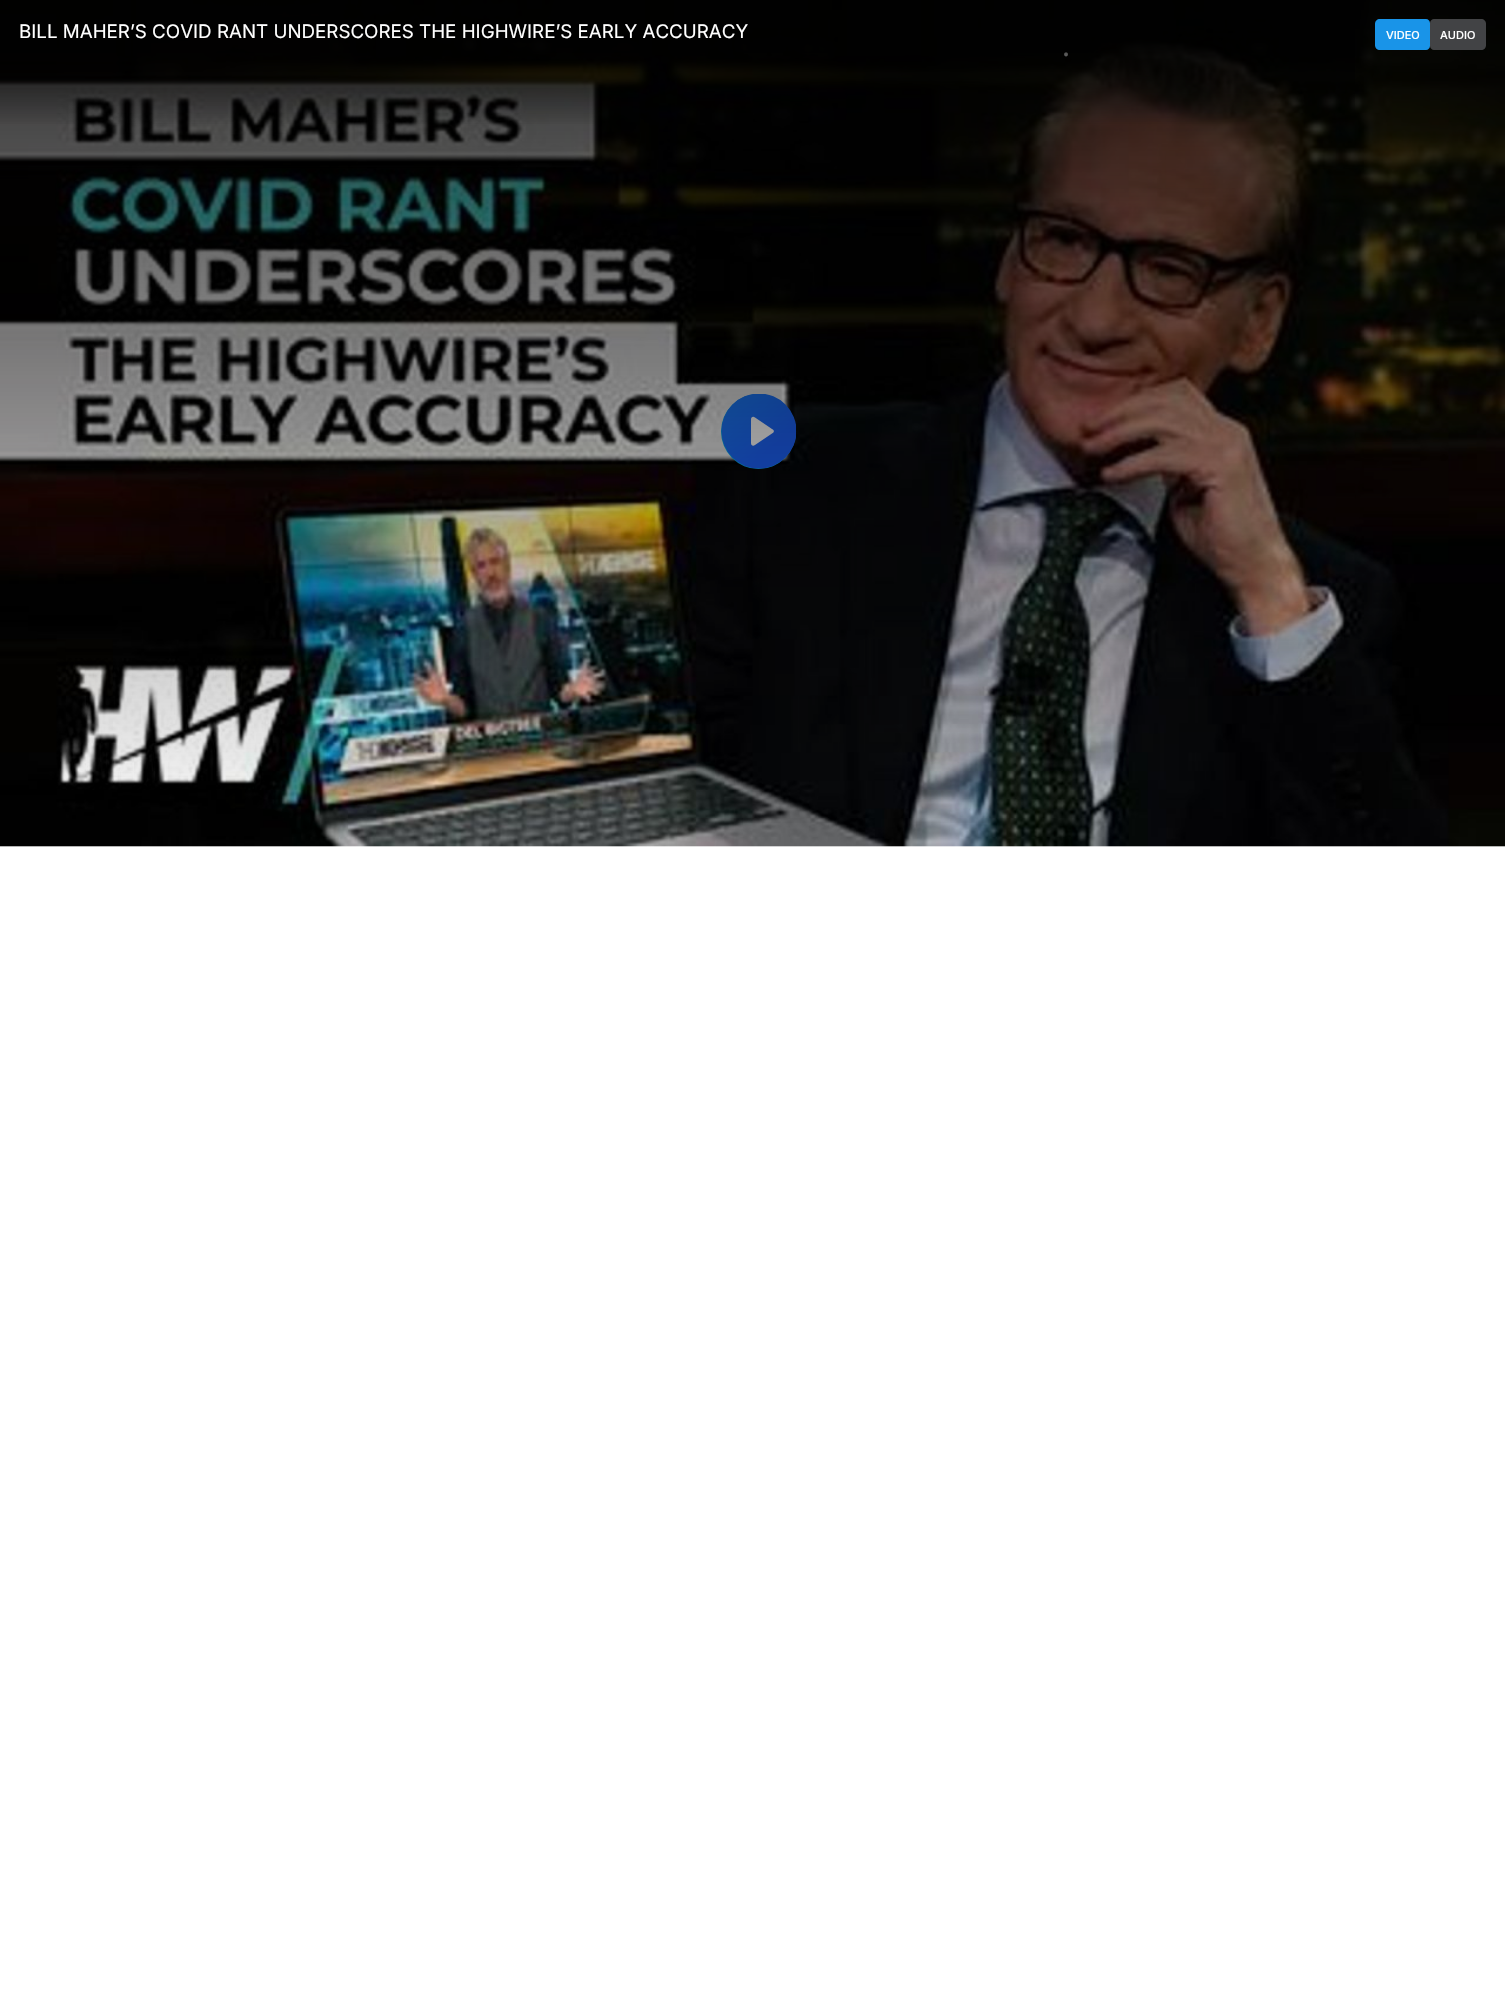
void draw(SkCanvas* canvas) {
    SkPaint paint;
    paint.setAntiAlias(true);
    auto face = [&](const char* family, int weight, float size, bool italic = false) {
        SkFontStyle style(weight, SkFontStyle::kNormal_Width,
            italic ? SkFontStyle::kItalic_Slant : SkFontStyle::kUpright_Slant);
        SkFont result(fontMgr->matchFamilyStyle(family, style), size);
        result.setSubpixel(true);
        return result;
    };
    auto write = [&](const char* s, float x, float y, const SkFont& font, SkColor color) {
        SkPaint ink(SkColor4f::FromColor(color));
        ink.setAntiAlias(true);
        canvas->drawString(s, x, y, font, ink);
    };
    auto paste = [&](const char* path, float x, float y, float w, float h) {
        auto image = SkImages::DeferredFromEncodedData(SkData::MakeFromFileName(path));
        canvas->drawImageRect(image, SkRect::MakeXYWH(x, y, w, h), SkSamplingOptions());
    };
    canvas->clear(SK_ColorWHITE);
    paste("pic2.png", 0, 846, 1505, 1);
    paste("pic1.png", 0, 0, 1505, 847);
    paint.setColor(SkColorSetRGB(1, 174, 240));
    canvas->drawCircle(758.5f, 431.5f, 37.5f, paint);
    canvas->save();
    canvas->clipRect(SkRect::MakeXYWH(721, 394, 75, 75));
    {
        const SkColor colors[] = {SkColorSetRGB(26, 126, 250), SkColorSetRGB(28, 97, 249)};
        const float stops[] = {0, 1};
        const SkPoint ends[] = {{727, 393}, {772, 447}};
        paint.setShader(SkGradientShader::MakeLinear(ends, colors, stops, 2, SkTileMode::kClamp));
        paint.setAlpha(255);
    }
    canvas->drawCircle(759, 431, 37.5f, paint);
    canvas->restore();
    paint.setShader(nullptr);
    paint.setColor(SK_ColorWHITE);
    canvas->drawPath(SkPathBuilder().moveTo(755, 445).cubicTo(753, 446.5f, 751, 445.5f, 751, 443).lineTo(751, 419.5f).cubicTo(751, 417, 753, 416, 755, 417.5f).lineTo(772, 429).cubicTo(774.5f, 430, 774.5f, 432.5f, 772, 433.5f).close().detach(), paint);
    {
        const SkColor colors[] = {SkColorSetARGB(204, 0, 0, 0), SkColorSetARGB(0, 0, 0, 0)};
        const float stops[] = {0, 1};
        const SkPoint ends[] = {{753, 0}, {753, 846}};
        paint.setShader(SkGradientShader::MakeLinear(ends, colors, stops, 2, SkTileMode::kClamp));
        paint.setAlpha(255);
    }
    canvas->drawRect(SkRect::MakeXYWH(0, 0, 1505, 823), paint);
    auto kFont1 = face("Inter", 400, 28);
    write(".", 1062, 56, kFont1, SK_ColorWHITE);
    {
        const SkColor colors[] = {SkColorSetARGB(230, 0, 0, 0), SkColorSetARGB(0, 0, 0, 0)};
        const float stops[] = {0.2f, 1};
        const SkPoint ends[] = {{678, 0}, {678, 128}};
        paint.setShader(SkGradientShader::MakeLinear(ends, colors, stops, 2, SkTileMode::kClamp));
        paint.setAlpha(255);
    }
    canvas->drawRect(SkRect::MakeXYWH(0, 0, 1355, 124), paint);
    auto kFont2 = face("Inter", 400, 18.75f);
    write("BILL MAHER’S COVID RANT UNDERSCORES THE HIGHWIRE’S EARLY ACCURACY", 19, 38, kFont2, SK_ColorWHITE);
    paint.setShader(nullptr);
    paint.setColor(SkColorSetRGB(25, 148, 232));
    canvas->drawPath(SkPathBuilder().moveTo(1380, 19).lineTo(1426, 19).cubicTo(1428, 19, 1430, 21, 1430, 23).lineTo(1430, 46).cubicTo(1430, 48, 1428, 50, 1426, 50).lineTo(1380, 50).cubicTo(1377, 50, 1375, 48, 1375, 45).lineTo(1375, 24).cubicTo(1375, 21, 1377, 19, 1380, 19).close().detach(), paint);
    auto kFont3 = face("Inter", 500, 11);
    write("VIDEO", 1386, 39, kFont3, SK_ColorWHITE);
    paint.setColor(SkColorSetRGB(66, 67, 69));
    canvas->drawPath(SkPathBuilder().moveTo(1434, 19).lineTo(1481, 19).cubicTo(1484, 19, 1486, 21, 1486, 24).lineTo(1486, 45).cubicTo(1486, 48, 1484, 50, 1481, 50).lineTo(1434, 50).cubicTo(1432, 50, 1430, 48, 1430, 46).lineTo(1430, 23).cubicTo(1430, 21, 1432, 19, 1434, 19).close().detach(), paint);
    write("AUDIO", 1440, 39, kFont3, SK_ColorWHITE);
}
